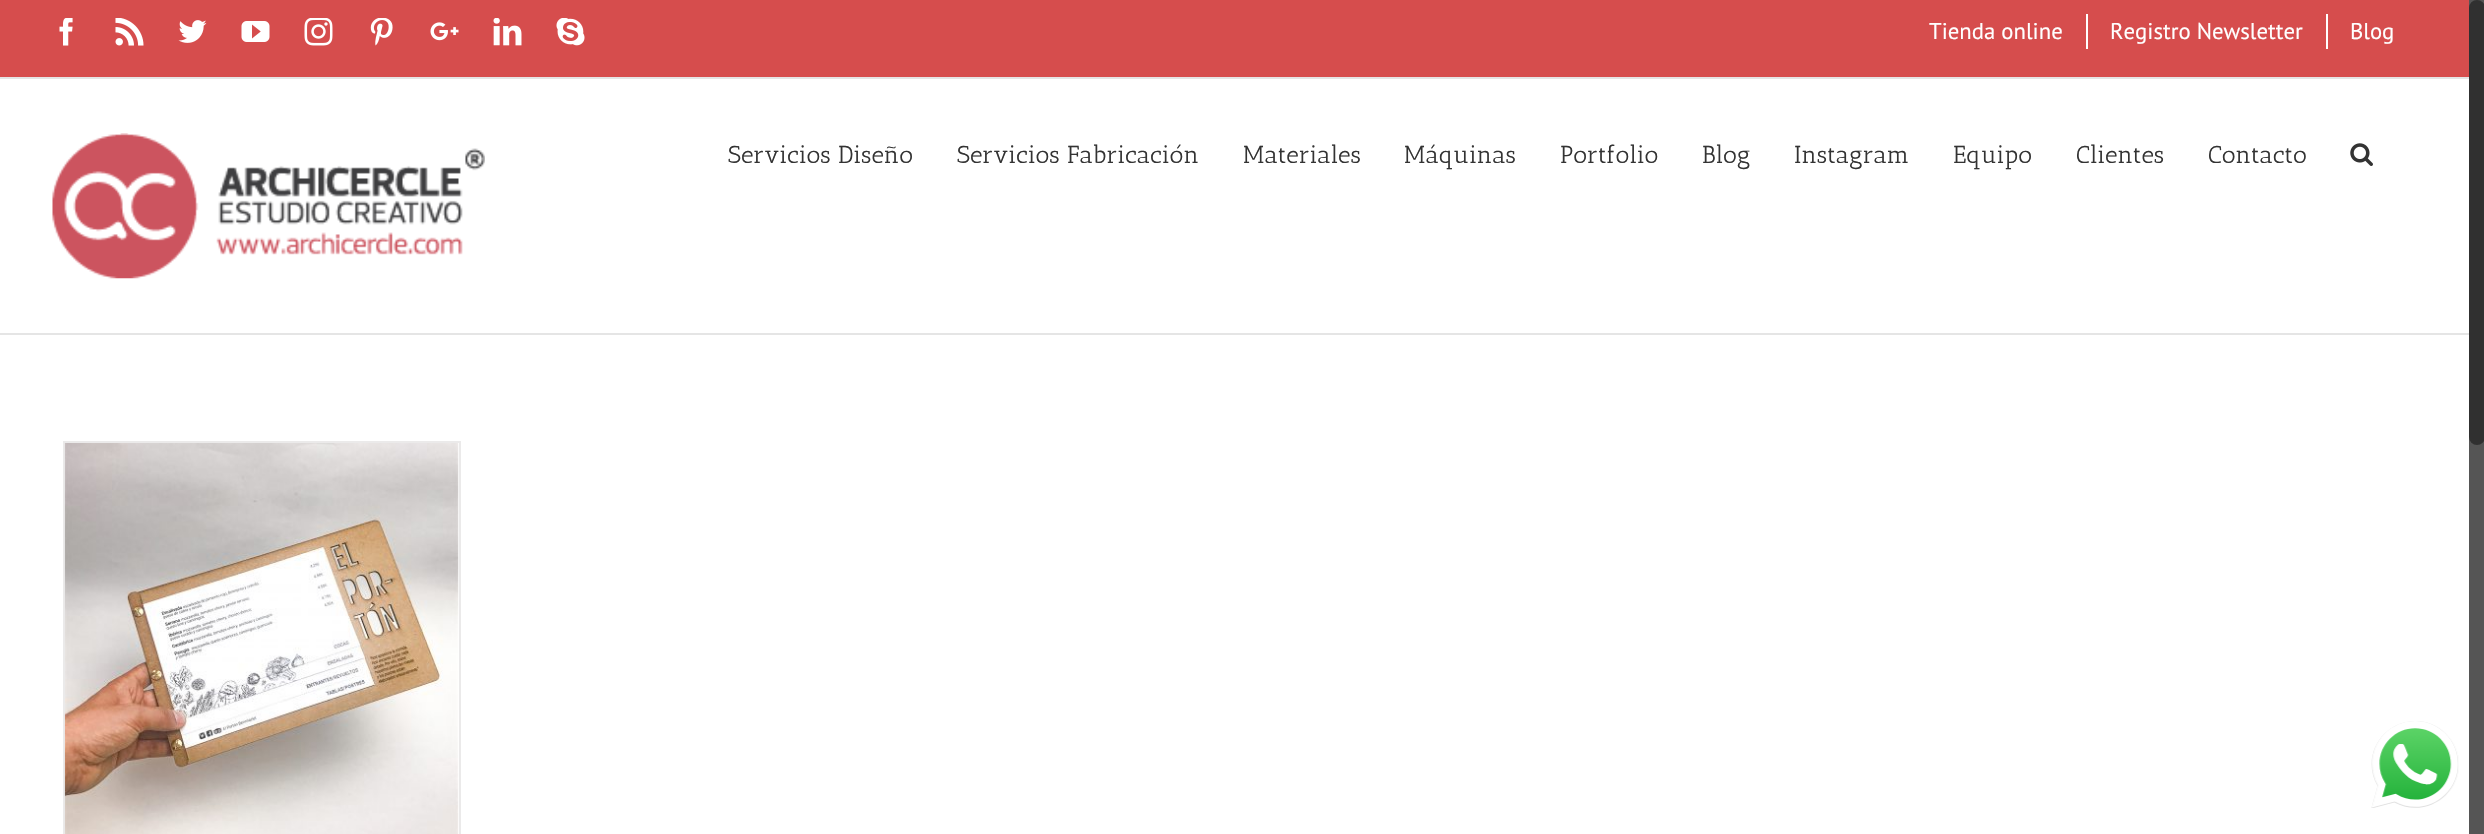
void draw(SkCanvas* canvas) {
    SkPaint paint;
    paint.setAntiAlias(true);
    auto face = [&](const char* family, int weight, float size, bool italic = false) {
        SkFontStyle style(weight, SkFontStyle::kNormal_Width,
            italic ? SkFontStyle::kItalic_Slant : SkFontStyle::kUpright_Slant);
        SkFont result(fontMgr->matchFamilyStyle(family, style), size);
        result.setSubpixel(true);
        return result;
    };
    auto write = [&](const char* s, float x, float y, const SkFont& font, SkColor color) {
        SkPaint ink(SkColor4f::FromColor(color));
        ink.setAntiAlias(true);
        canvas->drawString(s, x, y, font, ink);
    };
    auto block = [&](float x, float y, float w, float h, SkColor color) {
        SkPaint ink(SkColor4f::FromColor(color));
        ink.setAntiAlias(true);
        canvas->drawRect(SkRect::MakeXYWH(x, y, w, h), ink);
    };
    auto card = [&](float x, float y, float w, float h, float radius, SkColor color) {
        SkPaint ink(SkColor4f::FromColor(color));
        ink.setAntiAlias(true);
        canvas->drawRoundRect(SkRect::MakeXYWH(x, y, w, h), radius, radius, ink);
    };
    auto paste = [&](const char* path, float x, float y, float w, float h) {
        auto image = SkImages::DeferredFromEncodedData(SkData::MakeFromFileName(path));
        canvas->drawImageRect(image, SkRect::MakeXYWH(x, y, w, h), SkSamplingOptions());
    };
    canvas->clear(SK_ColorWHITE);
    block(0, 0, 2469, 77, SkColorSetRGB(214, 77, 77));
    block(0, 77, 2469, 2, SkColorSetRGB(229, 229, 229));
    paste("pic1.png", 59, 18, 14, 28);
    paste("pic2.png", 115, 18, 29, 28);
    paste("pic3.png", 178, 20, 29, 23);
    paste("pic4.png", 241, 21, 29, 21);
    paste("pic5.png", 304, 18, 29, 28);
    paste("pic6.png", 370, 18, 23, 28);
    paste("pic7.png", 430, 22, 29, 19);
    paste("pic8.png", 493, 18, 29, 28);
    paste("pic9.png", 556, 18, 29, 28);
    auto kFont1 = face("PT Sans", 400, 22.75f);
    write("Tienda online", 1929, 39, kFont1, SK_ColorWHITE);
    block(2086, 14, 2, 35, SK_ColorWHITE);
    write("Registro Newsletter", 2110, 39, kFont1, SK_ColorWHITE);
    block(2326, 14, 2, 35, SK_ColorWHITE);
    write("Blog", 2350, 39, kFont1, SK_ColorWHITE);
    block(0, 333, 2469, 2, SkColorSetRGB(229, 229, 229));
    paste("pic10.png", 52, 133, 433, 146);
    auto kFont2 = face("Antic Slab", 400, 24.5f);
    write("Servicios Diseño", 728, 163, kFont2, SkColorSetRGB(51, 51, 51));
    write("Servicios Fabricación", 957, 163, kFont2, SkColorSetRGB(51, 51, 51));
    write("Materiales", 1243, 163, kFont2, SkColorSetRGB(51, 51, 51));
    write("Máquinas", 1404, 163, kFont2, SkColorSetRGB(51, 51, 51));
    write("Portfolio", 1560, 163, kFont2, SkColorSetRGB(51, 51, 51));
    write("Blog", 1702, 163, kFont2, SkColorSetRGB(51, 51, 51));
    write("Instagram", 1794, 163, kFont2, SkColorSetRGB(51, 51, 51));
    write("Equipo", 1953, 163, kFont2, SkColorSetRGB(51, 51, 51));
    write("Clientes", 2076, 163, kFont2, SkColorSetRGB(51, 51, 51));
    write("Contacto", 2208, 163, kFont2, SkColorSetRGB(51, 51, 51));
    paste("pic11.png", 2350, 143, 23, 23);
    block(63, 441, 397, 2, SkColorSetRGB(235, 234, 234));
    block(459, 441, 2, 393, SkColorSetRGB(235, 234, 234));
    block(63, 441, 2, 393, SkColorSetRGB(235, 234, 234));
    paste("pic12.png", 64, 443, 395, 391);
    block(2469, 0, 15, 834, SkColorSetRGB(85, 85, 85));
    card(2469, 0, 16, 445, 8, SkColorSetRGB(48, 48, 48));
    paste("pic13.png", 2371, 721, 88, 87);
}
